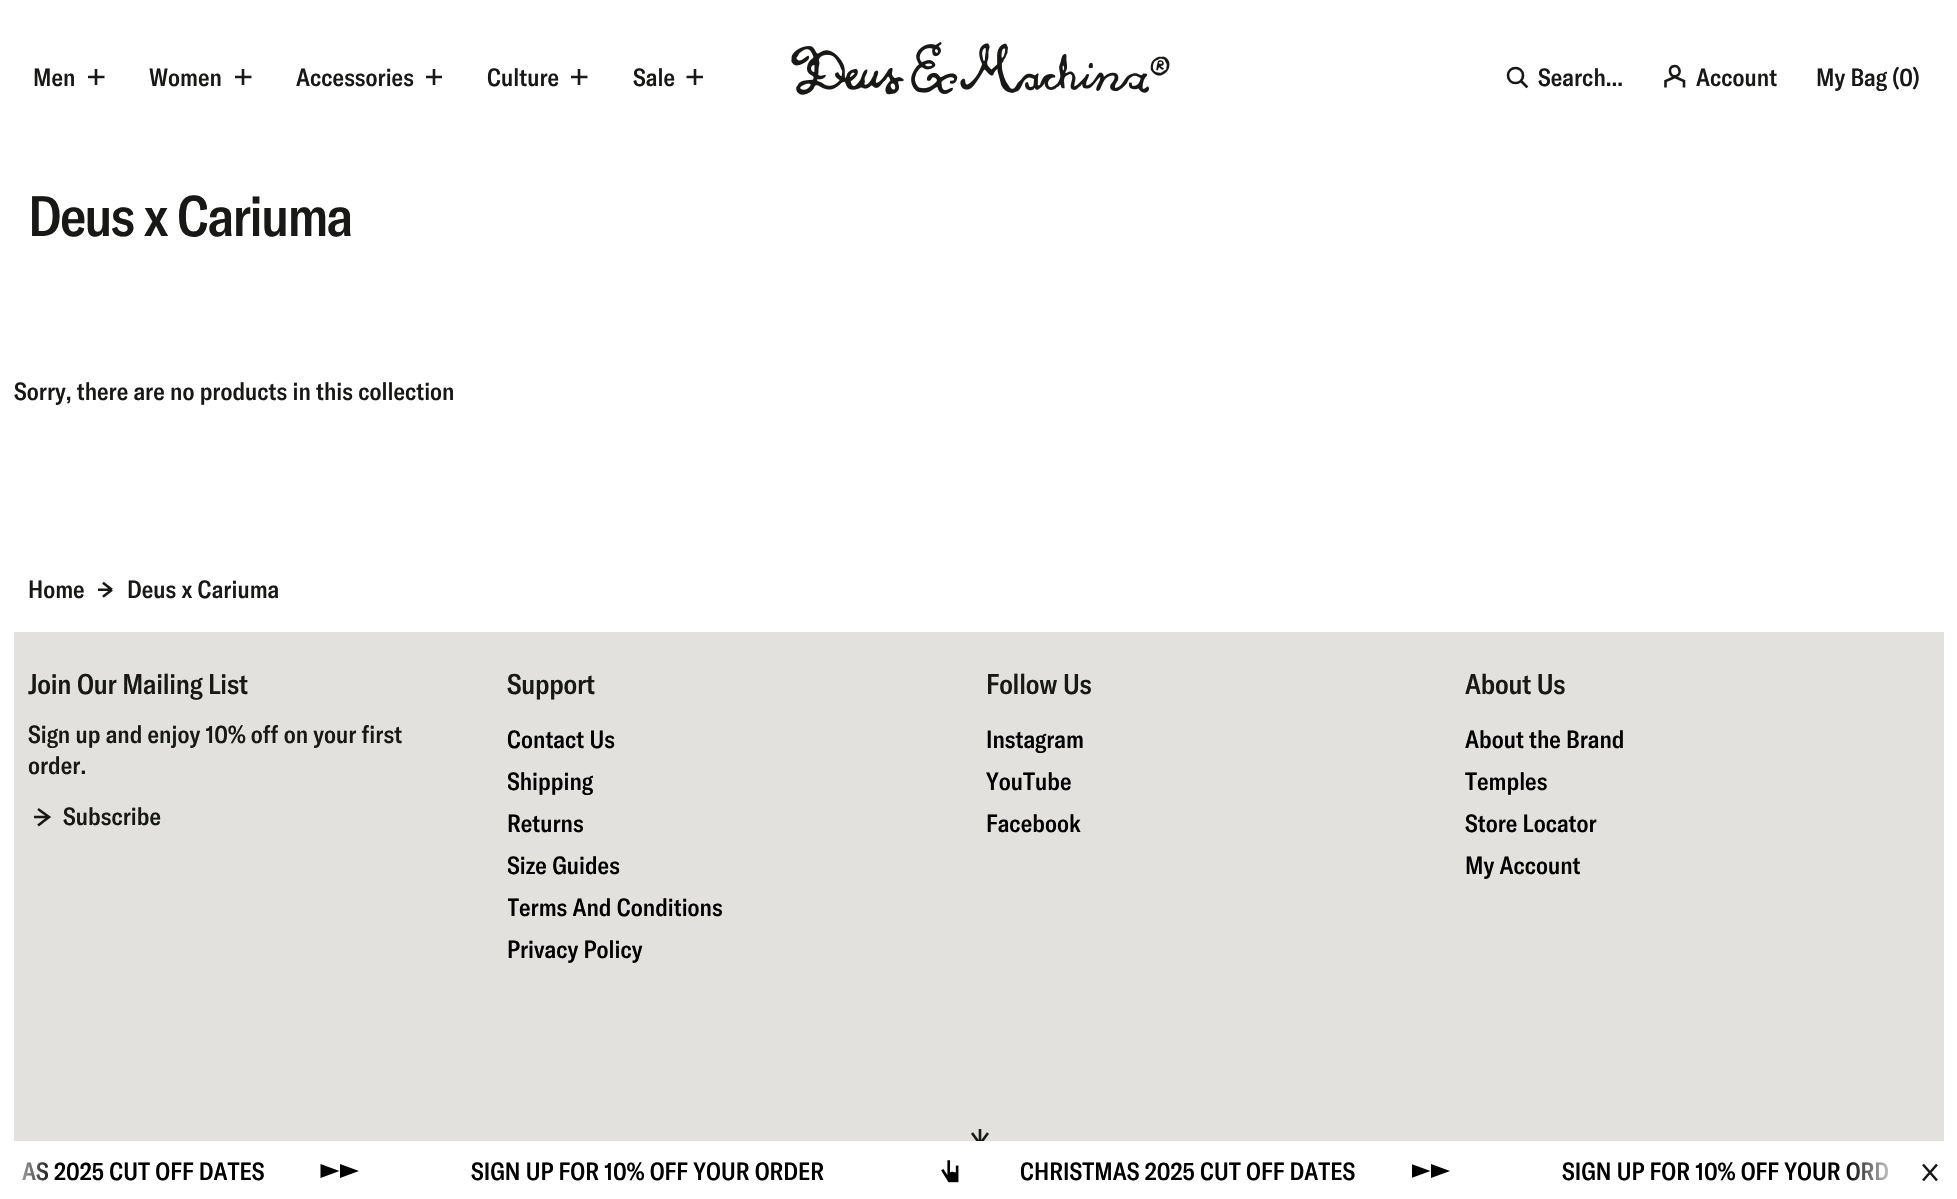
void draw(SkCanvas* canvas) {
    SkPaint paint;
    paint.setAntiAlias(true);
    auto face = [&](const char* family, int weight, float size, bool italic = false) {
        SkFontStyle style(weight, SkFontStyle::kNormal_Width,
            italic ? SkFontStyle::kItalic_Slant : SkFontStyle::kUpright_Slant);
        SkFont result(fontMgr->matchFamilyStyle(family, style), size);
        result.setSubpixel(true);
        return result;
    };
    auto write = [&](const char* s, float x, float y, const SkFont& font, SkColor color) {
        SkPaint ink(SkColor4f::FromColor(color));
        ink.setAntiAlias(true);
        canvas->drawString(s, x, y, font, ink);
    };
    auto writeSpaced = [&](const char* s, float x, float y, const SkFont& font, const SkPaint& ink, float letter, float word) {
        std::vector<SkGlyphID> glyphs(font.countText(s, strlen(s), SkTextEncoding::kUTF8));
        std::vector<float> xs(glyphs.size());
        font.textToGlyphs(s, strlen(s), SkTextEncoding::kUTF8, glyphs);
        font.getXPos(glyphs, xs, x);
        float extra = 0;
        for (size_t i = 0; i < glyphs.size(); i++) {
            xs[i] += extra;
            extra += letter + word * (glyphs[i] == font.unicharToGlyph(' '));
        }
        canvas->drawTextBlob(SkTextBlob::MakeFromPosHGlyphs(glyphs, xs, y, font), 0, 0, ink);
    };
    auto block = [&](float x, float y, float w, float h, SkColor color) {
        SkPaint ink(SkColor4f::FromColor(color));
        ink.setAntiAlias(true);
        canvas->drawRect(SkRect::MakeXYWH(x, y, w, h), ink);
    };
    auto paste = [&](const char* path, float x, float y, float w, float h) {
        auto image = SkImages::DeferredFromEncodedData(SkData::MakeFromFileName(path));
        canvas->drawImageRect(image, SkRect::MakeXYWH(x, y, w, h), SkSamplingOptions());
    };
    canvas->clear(SK_ColorWHITE);
    auto kFont1 = face("GT America", 500, 24.5f);
    write("Men", 33, 86, kFont1, SkColorSetRGB(24, 24, 23));
    paint.setStyle(SkPaint::kStroke_Style);
    paint.setStrokeWidth(2.6f);
    paint.setColor(SkColorSetRGB(24, 24, 23));
    canvas->drawPath(SkPathBuilder().moveTo(96, 69).lineTo(96, 85).moveTo(88, 77).lineTo(104.5f, 77).detach(), paint);
    write("Women", 149, 86, kFont1, SkColorSetRGB(24, 24, 23));
    canvas->drawPath(SkPathBuilder().moveTo(243, 69).lineTo(243, 85).moveTo(235, 77).lineTo(251.5f, 77).detach(), paint);
    write("Accessories", 296, 86, kFont1, SkColorSetRGB(24, 24, 23));
    canvas->drawPath(SkPathBuilder().moveTo(434, 69).lineTo(434, 85).moveTo(426, 77).lineTo(442, 77).detach(), paint);
    write("Culture", 487, 86, kFont1, SkColorSetRGB(24, 24, 23));
    canvas->drawPath(SkPathBuilder().moveTo(579, 69).lineTo(579, 85).moveTo(571, 77).lineTo(587.5f, 77).detach(), paint);
    write("Sale", 633, 86, kFont1, SkColorSetRGB(24, 24, 23));
    canvas->drawPath(SkPathBuilder().moveTo(695, 69).lineTo(695, 85).moveTo(686.5f, 77).lineTo(703, 77).detach(), paint);
    paste("pic1.png", 791, 42, 379, 53);
    paint.setStrokeCap(SkPaint::kSquare_Cap);
    canvas->drawPath(SkPathBuilder().moveTo(1526.5f, 86.5f).lineTo(1521.5f, 81.5f).moveTo(1523, 75.5f).cubicTo(1523, 85.5f, 1508, 85.5f, 1508, 75.5f).cubicTo(1508, 65.5f, 1523, 65.5f, 1523, 75.5f).close().detach(), paint);
    write("Search...", 1538, 86, kFont1, SkColorSetRGB(24, 24, 23));
    paint.setStrokeCap(SkPaint::kButt_Cap);
    canvas->drawPath(SkPathBuilder().moveTo(1665.5f, 87.5f).lineTo(1665.5f, 81).lineTo(1675, 77).lineTo(1684, 81).lineTo(1684, 87.5f).moveTo(1672.5f, 66.5f).cubicTo(1679, 63.5f, 1682.5f, 73.5f, 1676.5f, 76).cubicTo(1670.5f, 78.5f, 1667.5f, 69, 1672.5f, 66.5f).close().detach(), paint);
    write("Account", 1696, 86, kFont1, SkColorSetRGB(24, 24, 23));
    write("My Bag (0)", 1816, 86, kFont1, SkColorSetRGB(24, 24, 23));
    auto kFont2 = face("GT America", 500, 56);
    paint.setStyle(SkPaint::kFill_Style);
    writeSpaced("Deus x Cariuma", 28, 236, kFont2, paint, -1.75f, 0);
    write("Sorry, there are no products in this collection", 14, 400, kFont1, SkColorSetRGB(24, 24, 23));
    write("Home", 28, 598, kFont1, SkColorSetRGB(24, 24, 23));
    paste("pic2.png", 98, 581, 15, 17);
    write("Deus x Cariuma", 127, 598, kFont1, SkColorSetRGB(24, 24, 23));
    block(14, 632, 1930, 509, SkColorSetRGB(226, 225, 221));
    auto kFont3 = face("GT America", 500, 28);
    writeSpaced("Join Our Mailing List", 28, 694, kFont3, paint, -0.25f, 0);
    write("Sign up and enjoy 10% off on your first", 28, 743, kFont1, SkColorSetRGB(24, 24, 23));
    write("order.", 28, 774, kFont1, SkColorSetRGB(24, 24, 23));
    paint.setStyle(SkPaint::kStroke_Style);
    canvas->drawPath(SkPathBuilder().moveTo(38, 825.5f).lineTo(49, 817).lineTo(38, 809).moveTo(34, 817).lineTo(49, 817).detach(), paint);
    write("Subscribe", 63, 825, kFont1, SkColorSetRGB(24, 24, 23));
    paint.setStyle(SkPaint::kFill_Style);
    writeSpaced("Support", 507, 694, kFont3, paint, -0.25f, 0);
    write("Contact Us", 507, 748, kFont1, SK_ColorBLACK);
    canvas->save();
    canvas->clipRect(SkRect::MakeXYWH(508, 719, 465, 263));
    write("Shipping", 507, 790, kFont1, SK_ColorBLACK);
    canvas->restore();
    write("Returns", 507, 832, kFont1, SK_ColorBLACK);
    canvas->save();
    canvas->clipRect(SkRect::MakeXYWH(508, 719, 465, 263));
    write("Size Guides", 507, 874, kFont1, SK_ColorBLACK);
    write("Terms And Conditions", 507, 916, kFont1, SK_ColorBLACK);
    canvas->restore();
    write("Privacy Policy", 507, 958, kFont1, SK_ColorBLACK);
    writeSpaced("Follow Us", 986, 694, kFont3, paint, -0.25f, 0);
    write("Instagram", 986, 748, kFont1, SK_ColorBLACK);
    write("YouTube", 986, 790, kFont1, SK_ColorBLACK);
    write("Facebook", 986, 832, kFont1, SK_ColorBLACK);
    writeSpaced("About Us", 1465, 694, kFont3, paint, -0.25f, 0);
    write("About the Brand", 1465, 748, kFont1, SK_ColorBLACK);
    write("Temples", 1465, 790, kFont1, SK_ColorBLACK);
    write("Store Locator", 1465, 832, kFont1, SK_ColorBLACK);
    write("My Account", 1465, 874, kFont1, SK_ColorBLACK);
    paint.setStyle(SkPaint::kStroke_Style);
    canvas->drawPath(SkPathBuilder().moveTo(972, 1133).lineTo(980, 1144).lineTo(988, 1133).moveTo(980, 1129).lineTo(980, 1144).detach(), paint);
    block(976, 1141, 8, 6, SK_ColorWHITE);
    write("AS 2025 CUT OFF DATES", 22, 1180, kFont1, SK_ColorBLACK);
    paint.setStyle(SkPaint::kFill_Style);
    paint.setColor(SK_ColorBLACK);
    canvas->drawPath(SkPathBuilder().moveTo(339.5f, 1171).lineTo(320.5f, 1178).lineTo(320.5f, 1164).close().moveTo(359, 1171).lineTo(340, 1178).lineTo(340, 1164).close().detach(), paint);
    write("SIGN UP FOR 10% OFF YOUR ORDER", 471, 1180, kFont1, SK_ColorBLACK);
    paste("pic3.png", 941, 1160, 18, 23);
    write("CHRISTMAS 2025 CUT OFF DATES", 1020, 1180, kFont1, SK_ColorBLACK);
    canvas->save();
    canvas->clipRect(SkRect::MakeXYWH(1412, 1157, 39, 28));
    canvas->drawPath(SkPathBuilder().moveTo(1430.5f, 1171).lineTo(1411.5f, 1178).lineTo(1411.5f, 1164).close().detach(), paint);
    canvas->restore();
    canvas->drawPath(SkPathBuilder().moveTo(1450, 1171).lineTo(1431, 1178).lineTo(1431, 1164).close().detach(), paint);
    write("SIGN UP FOR 10% OFF YOUR ORD", 1562, 1180, kFont1, SK_ColorBLACK);
    {
        const SkColor colors[] = {SK_ColorWHITE, SkColorSetARGB(0, 255, 255, 255)};
        const float stops[] = {0, 1};
        const SkPoint ends[] = {{0, 1171}, {56, 1171}};
        paint.setShader(SkGradientShader::MakeLinear(ends, colors, stops, 2, SkTileMode::kClamp));
        paint.setAlpha(255);
    }
    canvas->drawRect(SkRect::MakeXYWH(22, 1162, 33, 19), paint);
    {
        const SkColor colors[] = {SK_ColorWHITE, SkColorSetARGB(0, 255, 255, 255)};
        const float stops[] = {0, 1};
        const SkPoint ends[] = {{1902, 1171}, {1846, 1171}};
        paint.setShader(SkGradientShader::MakeLinear(ends, colors, stops, 2, SkTileMode::kClamp));
        paint.setAlpha(255);
    }
    canvas->drawRect(SkRect::MakeXYWH(1847, 1162, 42, 19), paint);
    paint.setStyle(SkPaint::kStroke_Style);
    paint.setShader(nullptr);
    paint.setColor(SkColorSetRGB(24, 24, 23));
    canvas->drawPath(SkPathBuilder().moveTo(1937, 1180.5f).lineTo(1930, 1172.5f).moveTo(1930, 1172.5f).lineTo(1923, 1164.5f).moveTo(1930, 1172.5f).lineTo(1937, 1164.5f).moveTo(1930, 1172.5f).lineTo(1923, 1180.5f).detach(), paint);
}
